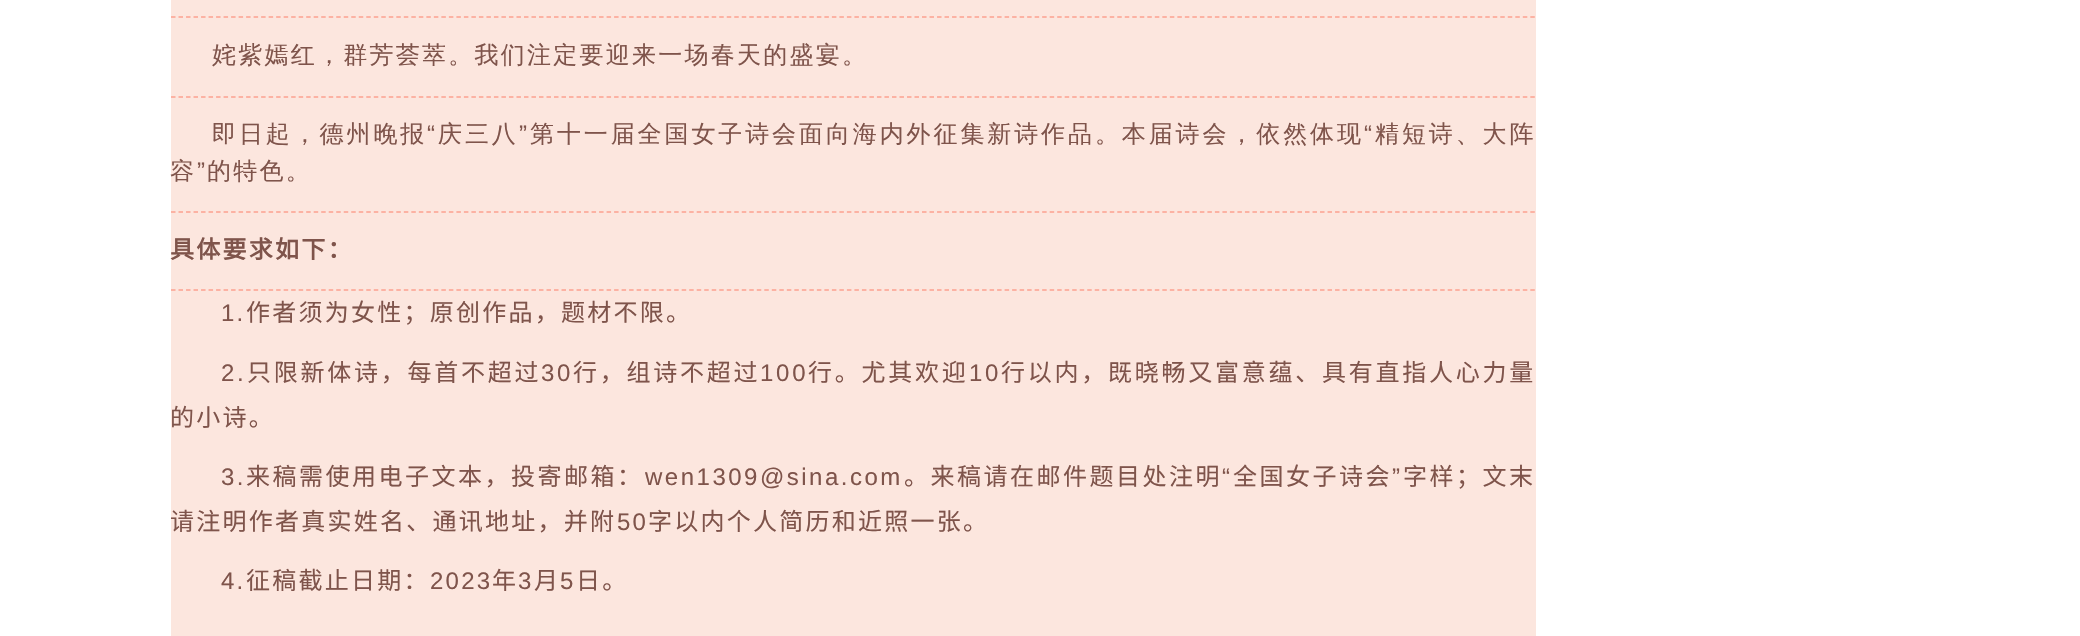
void draw(SkCanvas* canvas) {
    SkPaint paint;
    paint.setAntiAlias(true);
    auto face = [&](const char* family, int weight, float size, bool italic = false) {
        SkFontStyle style(weight, SkFontStyle::kNormal_Width,
            italic ? SkFontStyle::kItalic_Slant : SkFontStyle::kUpright_Slant);
        SkFont result(fontMgr->matchFamilyStyle(family, style), size);
        result.setSubpixel(true);
        return result;
    };
    auto writeSpaced = [&](const char* s, float x, float y, const SkFont& font, const SkPaint& ink, float letter, float word) {
        std::vector<SkGlyphID> glyphs(font.countText(s, strlen(s), SkTextEncoding::kUTF8));
        std::vector<float> xs(glyphs.size());
        font.textToGlyphs(s, strlen(s), SkTextEncoding::kUTF8, glyphs);
        font.getXPos(glyphs, xs, x);
        float extra = 0;
        for (size_t i = 0; i < glyphs.size(); i++) {
            xs[i] += extra;
            extra += letter + word * (glyphs[i] == font.unicharToGlyph(' '));
        }
        canvas->drawTextBlob(SkTextBlob::MakeFromPosHGlyphs(glyphs, xs, y, font), 0, 0, ink);
    };
    auto block = [&](float x, float y, float w, float h, SkColor color) {
        SkPaint ink(SkColor4f::FromColor(color));
        ink.setAntiAlias(true);
        canvas->drawRect(SkRect::MakeXYWH(x, y, w, h), ink);
    };
    canvas->clear(SK_ColorWHITE);
    block(171, 0, 1365, 636, SkColorSetRGB(252, 230, 222));
    paint.setStyle(SkPaint::kStroke_Style);
    paint.setStrokeWidth(1.5f);
    paint.setColor(SkColorSetRGB(253, 161, 144));
    paint.setPathEffect(SkDashPathEffect::Make({{4.5f, 3.01f}}, 0));
    canvas->drawPath(SkPathBuilder().moveTo(171, 17).lineTo(1536, 17).detach(), paint);
    paint.setPathEffect(nullptr);
    paint.setPathEffect(SkDashPathEffect::Make({{4.5f, 3.01f}}, 0));
    canvas->drawPath(SkPathBuilder().moveTo(171, 97).lineTo(1536, 97).detach(), paint);
    paint.setPathEffect(nullptr);
    auto kFont1 = face("WenQuanYi Zen Hei", 500, 24);
    paint.setStyle(SkPaint::kFill_Style);
    paint.setColor(SkColorSetRGB(127, 84, 75));
    writeSpaced("姹紫嫣红，群芳荟萃。我们注定要迎来一场春天的盛宴。", 212, 63, kFont1, paint, 2.25f, 0);
    paint.setStyle(SkPaint::kStroke_Style);
    paint.setColor(SkColorSetRGB(253, 161, 144));
    paint.setPathEffect(SkDashPathEffect::Make({{4.5f, 3.01f}}, 0));
    canvas->drawPath(SkPathBuilder().moveTo(171, 212).lineTo(1536, 212).detach(), paint);
    paint.setPathEffect(nullptr);
    paint.setStyle(SkPaint::kFill_Style);
    paint.setColor(SkColorSetRGB(127, 84, 75));
    writeSpaced("即日起，德州晚报", 212, 142, kFont1, paint, 2.9f, 0);
    auto kFont2 = face("Liberation Sans", 400, 24);
    writeSpaced("“", 427, 142, kFont2, paint, 2.9f, 0);
    writeSpaced("庆三八", 438, 142, kFont1, paint, 2.9f, 0);
    writeSpaced("”", 519, 142, kFont2, paint, 2.9f, 0);
    writeSpaced("第十一届全国女子诗会面向海内外征集新诗作品。本届诗会，依然体现", 530, 142, kFont1, paint, 2.9f, 0);
    writeSpaced("“", 1364, 142, kFont2, paint, 2.9f, 0);
    writeSpaced("精短诗、大阵", 1375, 142, kFont1, paint, 2.9f, 0);
    writeSpaced("容", 170, 179, kFont1, paint, 2.25f, 0);
    writeSpaced("”", 197, 179, kFont2, paint, 2.25f, 0);
    writeSpaced("的特色。", 207, 179, kFont1, paint, 2.25f, 0);
    paint.setStyle(SkPaint::kStroke_Style);
    paint.setColor(SkColorSetRGB(253, 161, 144));
    paint.setPathEffect(SkDashPathEffect::Make({{4.5f, 3.01f}}, 0));
    canvas->drawPath(SkPathBuilder().moveTo(171, 290).lineTo(1536, 290).detach(), paint);
    paint.setPathEffect(nullptr);
    auto kFont3 = face("Noto Sans CJK SC", 700, 24);
    paint.setStyle(SkPaint::kFill_Style);
    paint.setColor(SkColorSetRGB(127, 84, 75));
    writeSpaced("具体要求如下：", 170, 258, kFont3, paint, 2.25f, 0);
    writeSpaced("1.", 221, 321, kFont2, paint, 2.25f, 0);
    auto kFont4 = face("Noto Sans CJK SC", 400, 24);
    writeSpaced("作者须为女性；原创作品，题材不限。", 246, 321, kFont4, paint, 2.25f, 0);
    writeSpaced("2.", 221, 381, kFont2, paint, 2.75f, 0);
    writeSpaced("只限新体诗，每首不超过", 247, 381, kFont4, paint, 2.75f, 0);
    writeSpaced("30", 541, 381, kFont2, paint, 2.75f, 0);
    writeSpaced("行，组诗不超过", 573, 381, kFont4, paint, 2.75f, 0);
    writeSpaced("100", 760, 381, kFont2, paint, 2.75f, 0);
    writeSpaced("行。尤其欢迎", 808, 381, kFont4, paint, 2.75f, 0);
    writeSpaced("10", 969, 381, kFont2, paint, 2.75f, 0);
    writeSpaced("行以内，既晓畅又富意蕴、具有直指人心力量", 1001, 381, kFont4, paint, 2.75f, 0);
    writeSpaced("的小诗。", 170, 426, kFont4, paint, 2.25f, 0);
    writeSpaced("3.", 221, 485, kFont2, paint, 2.5f, 0);
    writeSpaced("来稿需使用电子文本，投寄邮箱：", 246, 485, kFont4, paint, 2.5f, 0);
    writeSpaced("wen1309@sina.com", 645, 485, kFont2, paint, 2.5f, 0);
    writeSpaced("。来稿请在邮件题目处注明", 904, 485, kFont4, paint, 2.5f, 0);
    writeSpaced("“", 1222, 485, kFont2, paint, 2.5f, 0);
    writeSpaced("全国女子诗会", 1233, 485, kFont4, paint, 2.5f, 0);
    writeSpaced("”", 1392, 485, kFont2, paint, 2.5f, 0);
    writeSpaced("字样；文末", 1403, 485, kFont4, paint, 2.5f, 0);
    writeSpaced("请注明作者真实姓名、通讯地址，并附", 170, 530, kFont4, paint, 2.25f, 0);
    writeSpaced("50", 617, 530, kFont2, paint, 2.25f, 0);
    writeSpaced("字以内个人简历和近照一张。", 648, 530, kFont4, paint, 2.25f, 0);
    writeSpaced("4.", 221, 589, kFont2, paint, 2.25f, 0);
    writeSpaced("征稿截止日期：", 246, 589, kFont4, paint, 2.25f, 0);
    writeSpaced("2023", 430, 589, kFont2, paint, 2.25f, 0);
    writeSpaced("年", 492, 589, kFont4, paint, 2.25f, 0);
    writeSpaced("3", 518, 589, kFont2, paint, 2.25f, 0);
    writeSpaced("月", 534, 589, kFont4, paint, 2.25f, 0);
    writeSpaced("5", 560, 589, kFont2, paint, 2.25f, 0);
    writeSpaced("日。", 576, 589, kFont4, paint, 2.25f, 0);
}
